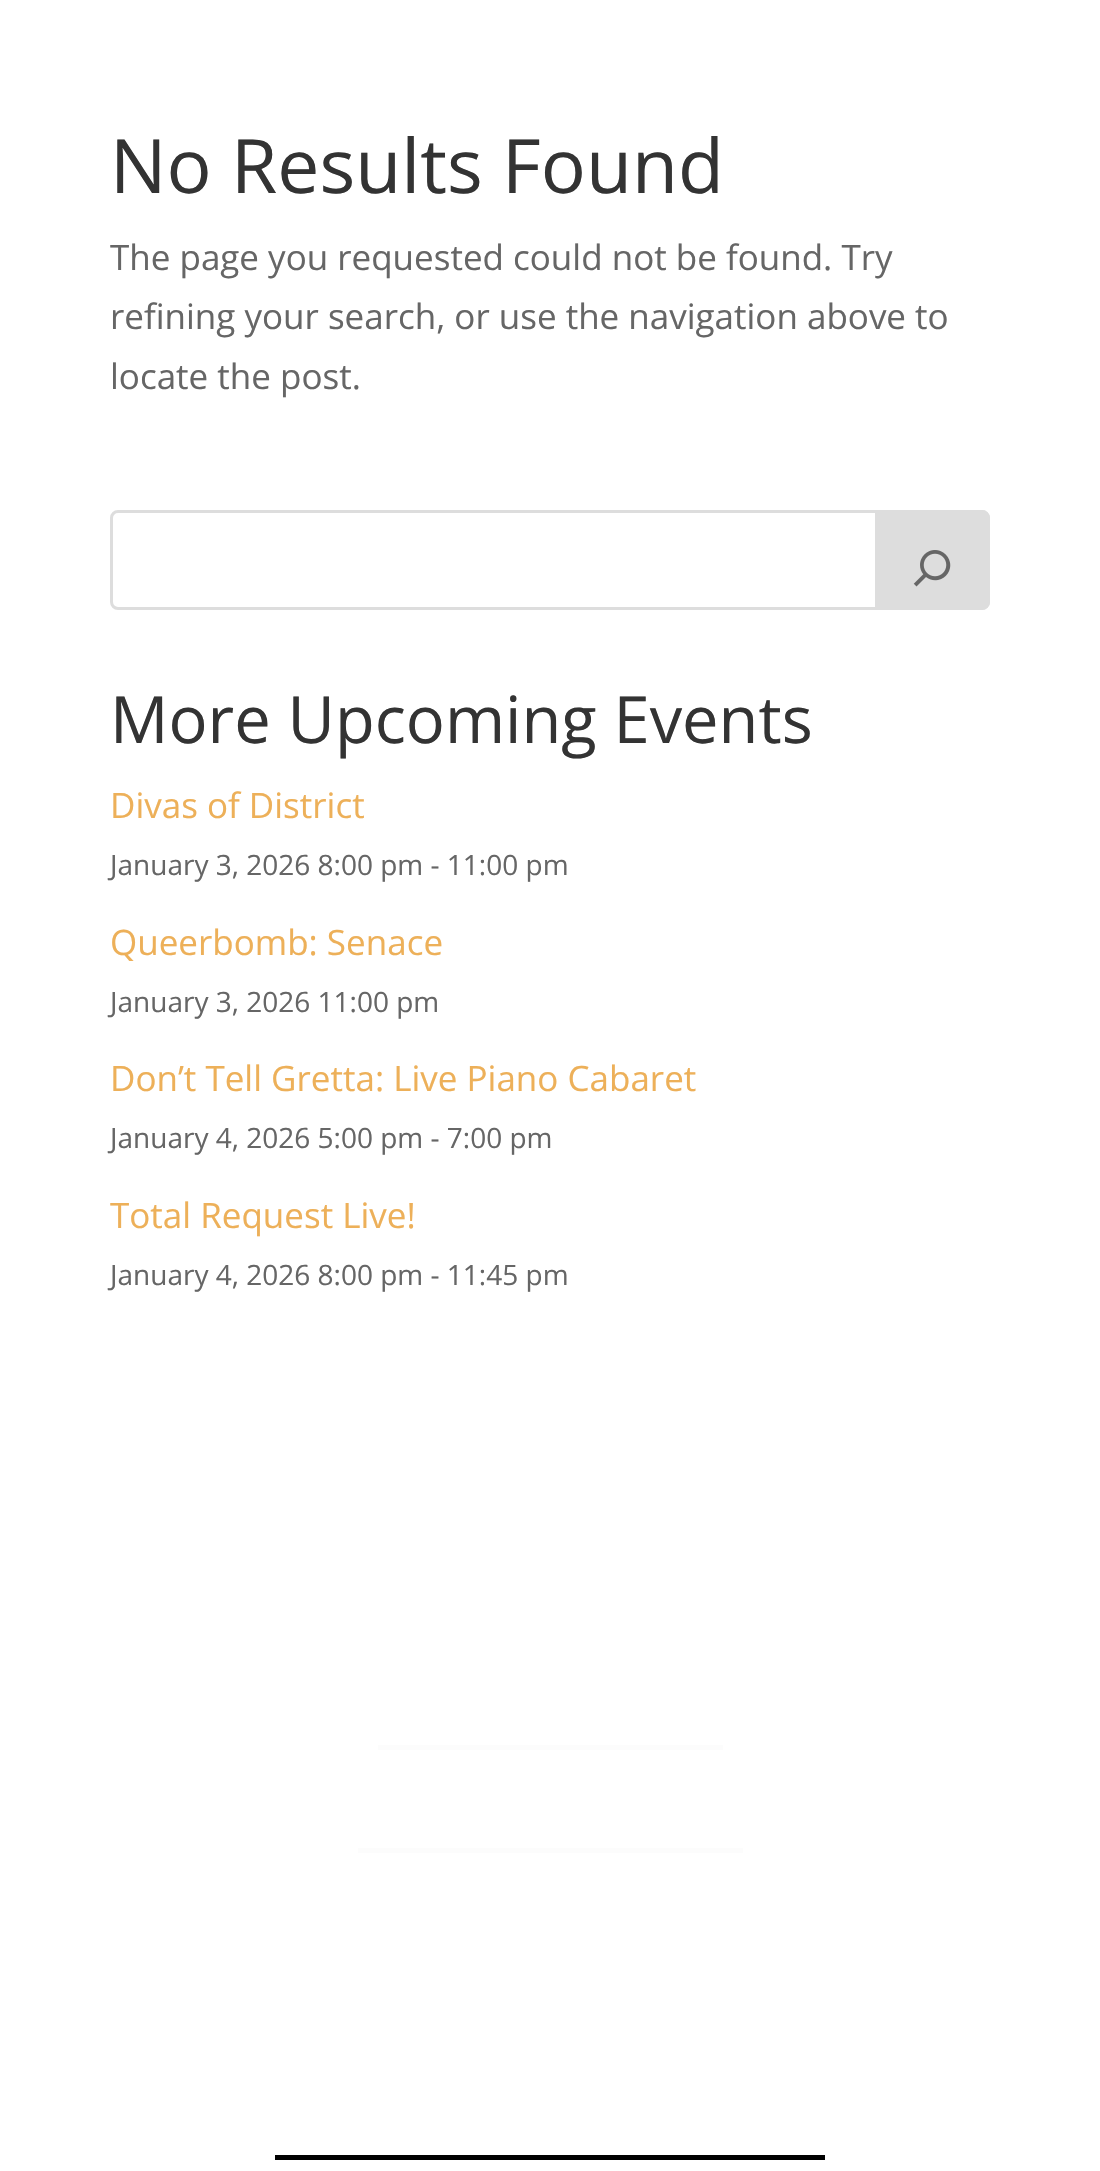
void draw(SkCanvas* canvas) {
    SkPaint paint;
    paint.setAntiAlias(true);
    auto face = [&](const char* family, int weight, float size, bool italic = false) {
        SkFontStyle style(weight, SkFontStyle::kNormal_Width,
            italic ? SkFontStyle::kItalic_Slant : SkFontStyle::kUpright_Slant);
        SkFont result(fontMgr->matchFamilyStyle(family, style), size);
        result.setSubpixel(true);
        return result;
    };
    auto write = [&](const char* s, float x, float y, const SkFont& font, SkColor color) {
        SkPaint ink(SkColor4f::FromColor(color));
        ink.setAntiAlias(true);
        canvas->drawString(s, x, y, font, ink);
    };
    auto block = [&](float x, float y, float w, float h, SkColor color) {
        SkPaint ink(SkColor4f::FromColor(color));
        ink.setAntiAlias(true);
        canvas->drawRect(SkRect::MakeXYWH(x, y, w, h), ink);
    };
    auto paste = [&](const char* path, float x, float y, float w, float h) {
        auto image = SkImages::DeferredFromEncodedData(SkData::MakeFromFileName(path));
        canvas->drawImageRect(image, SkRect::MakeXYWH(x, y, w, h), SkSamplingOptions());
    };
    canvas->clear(SK_ColorWHITE);
    auto kFont1 = face("Open Sans", 400, 75);
    write("No Results Found", 110, 193, kFont1, SkColorSetRGB(51, 51, 51));
    auto kFont2 = face("Open Sans", 400, 35);
    write("The page you requested could not be found. Try", 110, 270, kFont2, SkColorSetRGB(102, 102, 102));
    write("refining your search, or use the navigation above to", 110, 329, kFont2, SkColorSetRGB(102, 102, 102));
    write("locate the post.", 110, 389, kFont2, SkColorSetRGB(102, 102, 102));
    paint.setStyle(SkPaint::kStroke_Style);
    paint.setStrokeWidth(3);
    paint.setColor(SkColorSetRGB(221, 221, 221));
    canvas->drawRoundRect(SkRect::MakeXYWH(111.5f, 511.5f, 877, 97), 6.5f, 6.5f, paint);
    paint.setStyle(SkPaint::kFill_Style);
    canvas->drawPath(SkPathBuilder().moveTo(876.5f, 511.5f).lineTo(982, 511.5f).cubicTo(985.5f, 511.5f, 988.5f, 514.5f, 988.5f, 518).lineTo(988.5f, 602).cubicTo(988.5f, 605.5f, 985.5f, 608.5f, 982, 608.5f).lineTo(876.5f, 608.5f).close().detach(), paint);
    paint.setStyle(SkPaint::kStroke_Style);
    canvas->drawPath(SkPathBuilder().moveTo(876.5f, 511.5f).lineTo(982, 511.5f).cubicTo(985.5f, 511.5f, 988.5f, 514.5f, 988.5f, 518).lineTo(988.5f, 602).cubicTo(988.5f, 605.5f, 985.5f, 608.5f, 982, 608.5f).lineTo(876.5f, 608.5f).close().detach(), paint);
    paste("pic1.png", 913, 550, 38, 37);
    auto kFont3 = face("Open Sans", 400, 65);
    write("More Upcoming Events", 110, 743, kFont3, SkColorSetRGB(51, 51, 51));
    write("Divas of District", 110, 818, kFont2, SkColorSetRGB(237, 176, 89));
    auto kFont4 = face("Open Sans", 400, 28);
    write("January 3, 2026 8:00 pm - 11:00 pm", 110, 875, kFont4, SkColorSetRGB(102, 102, 102));
    write("Queerbomb: Senace", 110, 955, kFont2, SkColorSetRGB(237, 176, 89));
    write("January 3, 2026 11:00 pm", 110, 1012, kFont4, SkColorSetRGB(102, 102, 102));
    write("Don’t Tell Gretta: Live Piano Cabaret", 110, 1091, kFont2, SkColorSetRGB(237, 176, 89));
    write("January 4, 2026 5:00 pm - 7:00 pm", 110, 1148, kFont4, SkColorSetRGB(102, 102, 102));
    write("Total Request Live!", 110, 1228, kFont2, SkColorSetRGB(237, 176, 89));
    write("January 4, 2026 8:00 pm - 11:45 pm", 110, 1285, kFont4, SkColorSetRGB(102, 102, 102));
    block(378, 1745, 345, 5, SkColorSetRGB(252, 252, 252));
    block(358, 1848, 385, 5, SkColorSetRGB(252, 252, 252));
    block(275, 2155, 550, 5, SK_ColorBLACK);
}
